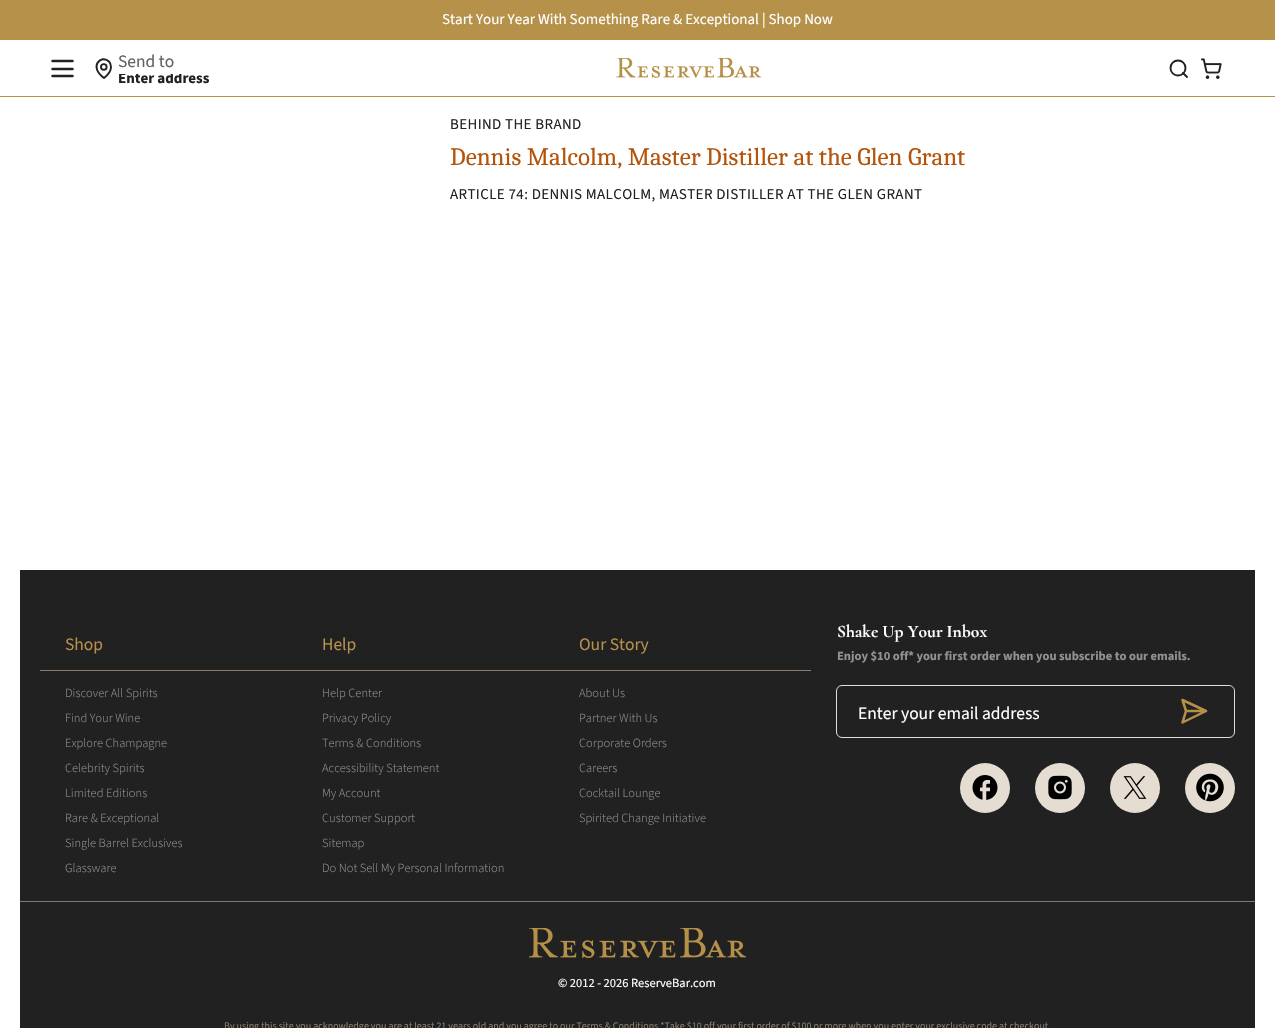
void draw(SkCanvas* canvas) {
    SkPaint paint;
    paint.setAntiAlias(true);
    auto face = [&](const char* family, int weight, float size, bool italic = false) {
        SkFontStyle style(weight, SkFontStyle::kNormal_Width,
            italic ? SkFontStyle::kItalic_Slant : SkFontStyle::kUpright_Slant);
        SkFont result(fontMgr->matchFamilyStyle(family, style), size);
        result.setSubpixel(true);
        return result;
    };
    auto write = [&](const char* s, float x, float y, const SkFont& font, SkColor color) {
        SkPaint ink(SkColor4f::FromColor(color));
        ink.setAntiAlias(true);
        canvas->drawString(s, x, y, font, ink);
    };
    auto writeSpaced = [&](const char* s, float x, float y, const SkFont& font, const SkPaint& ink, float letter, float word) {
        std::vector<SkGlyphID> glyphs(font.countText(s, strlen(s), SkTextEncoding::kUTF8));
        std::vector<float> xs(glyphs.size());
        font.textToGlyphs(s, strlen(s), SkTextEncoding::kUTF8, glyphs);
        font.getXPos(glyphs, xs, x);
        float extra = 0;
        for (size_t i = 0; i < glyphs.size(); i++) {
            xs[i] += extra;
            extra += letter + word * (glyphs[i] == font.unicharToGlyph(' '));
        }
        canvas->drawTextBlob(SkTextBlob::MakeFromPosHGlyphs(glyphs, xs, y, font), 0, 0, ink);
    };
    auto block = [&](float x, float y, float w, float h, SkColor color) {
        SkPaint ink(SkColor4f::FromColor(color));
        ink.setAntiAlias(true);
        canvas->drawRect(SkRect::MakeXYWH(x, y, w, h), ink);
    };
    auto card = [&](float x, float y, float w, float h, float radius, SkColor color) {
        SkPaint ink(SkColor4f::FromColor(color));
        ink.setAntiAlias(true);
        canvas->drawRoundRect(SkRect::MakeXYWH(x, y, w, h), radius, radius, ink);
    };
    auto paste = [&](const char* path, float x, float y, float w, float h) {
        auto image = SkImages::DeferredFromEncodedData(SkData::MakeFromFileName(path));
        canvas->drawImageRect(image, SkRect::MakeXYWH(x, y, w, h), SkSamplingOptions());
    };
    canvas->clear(SK_ColorWHITE);
    block(0, 0, 1275, 40, SkColorSetRGB(181, 145, 74));
    auto kFont1 = face("Source Sans 3", 400, 15);
    write("Start Your Year With Something Rare & Exceptional | Shop Now", 442, 24, kFont1, SK_ColorWHITE);
    block(0, 96, 1275, 1, SkColorSetRGB(181, 145, 74));
    paint.setStyle(SkPaint::kStroke_Style);
    paint.setStrokeWidth(2.5f);
    paint.setStrokeCap(SkPaint::kRound_Cap);
    paint.setStrokeJoin(SkPaint::kRound_Join);
    paint.setColor(SkColorSetRGB(33, 33, 33));
    canvas->drawPath(SkPathBuilder().moveTo(52.5f, 69).lineTo(72.5f, 69).moveTo(52.5f, 61).lineTo(72.5f, 61).moveTo(52.5f, 76).lineTo(72.5f, 76).detach(), paint);
    paint.setStrokeWidth(1.9f);
    canvas->drawPath(SkPathBuilder().moveTo(111, 67).cubicTo(111, 72.5f, 104, 78, 104, 78).cubicTo(88, 66.5f, 101.5f, 54, 109, 61.5f).cubicTo(110.5f, 63, 111, 65, 111, 67).close().detach(), paint);
    paint.setStrokeCap(SkPaint::kButt_Cap);
    paint.setStrokeJoin(SkPaint::kMiter_Join);
    canvas->drawCircle(103.8f, 66.9f, 2.8f, paint);
    auto kFont2 = face("Source Sans 3", 400, 17.5f);
    write("Send to", 118, 67, kFont2, SkColorSetRGB(97, 97, 97));
    canvas->save();
    canvas->clipRect(SkRect::MakeXYWH(118, 74, 91, 10));
    auto kFont3 = face("Source Sans 3", 700, 15);
    write("Enter address", 118, 83, kFont3, SkColorSetRGB(33, 33, 33));
    canvas->restore();
    paste("pic1.png", 616, 58, 145, 20);
    canvas->drawCircle(1178, 68, 7.5f, paint);
    paint.setStrokeCap(SkPaint::kRound_Cap);
    paint.setStrokeJoin(SkPaint::kRound_Join);
    canvas->drawPath(SkPathBuilder().moveTo(1187, 77).lineTo(1183, 73).detach(), paint);
    paste("pic2.png", 1201, 58, 21, 21);
    paint.setStyle(SkPaint::kFill_Style);
    writeSpaced("BEHIND THE BRAND", 450, 129, kFont1, paint, 0.38f, 0);
    auto kFont4 = face("Caladea", 400, 25);
    write("Dennis Malcolm, Master Distiller at the Glen Grant", 450, 165, kFont4, SkColorSetRGB(180, 83, 9));
    writeSpaced("ARTICLE 74: DENNIS MALCOLM, MASTER DISTILLER AT THE GLEN GRANT", 450, 199, kFont1, paint, 0.38f, 0);
    block(20, 570, 1235, 458, SkColorSetRGB(33, 33, 33));
    write("Shop", 65, 650, kFont2, SkColorSetRGB(181, 145, 74));
    block(40, 670, 771, 1, SkColorSetRGB(139, 126, 111));
    auto kFont5 = face("Source Sans 3", 300, 12.5f);
    write("Discover All Spirits", 65, 697, kFont5, SkColorSetRGB(146, 144, 144));
    write("Find Your Wine", 65, 722, kFont5, SkColorSetRGB(146, 144, 144));
    write("Explore Champagne", 65, 747, kFont5, SkColorSetRGB(146, 144, 144));
    write("Celebrity Spirits", 65, 772, kFont5, SkColorSetRGB(146, 144, 144));
    write("Limited Editions", 65, 797, kFont5, SkColorSetRGB(146, 144, 144));
    write("Rare & Exceptional", 65, 822, kFont5, SkColorSetRGB(146, 144, 144));
    write("Single Barrel Exclusives", 65, 847, kFont5, SkColorSetRGB(146, 144, 144));
    write("Glassware", 65, 872, kFont5, SkColorSetRGB(146, 144, 144));
    write("Help", 322, 650, kFont2, SkColorSetRGB(181, 145, 74));
    write("Help Center", 322, 697, kFont5, SkColorSetRGB(146, 144, 144));
    write("Privacy Policy", 322, 722, kFont5, SkColorSetRGB(146, 144, 144));
    write("Terms & Conditions", 322, 747, kFont5, SkColorSetRGB(146, 144, 144));
    write("Accessibility Statement", 322, 772, kFont5, SkColorSetRGB(146, 144, 144));
    write("My Account", 322, 797, kFont5, SkColorSetRGB(146, 144, 144));
    write("Customer Support", 322, 822, kFont5, SkColorSetRGB(146, 144, 144));
    write("Sitemap", 322, 847, kFont5, SkColorSetRGB(146, 144, 144));
    write("Do Not Sell My Personal Information", 322, 872, kFont5, SkColorSetRGB(146, 144, 144));
    write("Our Story", 579, 650, kFont2, SkColorSetRGB(181, 145, 74));
    write("About Us", 579, 697, kFont5, SkColorSetRGB(146, 144, 144));
    write("Partner With Us", 579, 722, kFont5, SkColorSetRGB(146, 144, 144));
    write("Corporate Orders", 579, 747, kFont5, SkColorSetRGB(146, 144, 144));
    write("Careers", 579, 772, kFont5, SkColorSetRGB(146, 144, 144));
    write("Cocktail Lounge", 579, 797, kFont5, SkColorSetRGB(146, 144, 144));
    write("Spirited Change Initiative", 579, 822, kFont5, SkColorSetRGB(146, 144, 144));
    auto kFont6 = face("Cormorant", 700, 17.5f);
    write("Shake Up Your Inbox", 837, 637, kFont6, SK_ColorWHITE);
    auto kFont7 = face("Source Sans 3", 700, 12.5f);
    write("Enjoy $10 off* your first order when you subscribe to our emails.", 837, 660, kFont7, SkColorSetRGB(146, 144, 144));
    paint.setStyle(SkPaint::kStroke_Style);
    paint.setStrokeWidth(1);
    paint.setStrokeCap(SkPaint::kButt_Cap);
    paint.setStrokeJoin(SkPaint::kMiter_Join);
    paint.setColor(SkColorSetRGB(229, 221, 209));
    canvas->drawRoundRect(SkRect::MakeXYWH(836.5f, 685.5f, 398, 52), 5.5f, 5.5f, paint);
    write("Enter your email address", 858, 719, kFont2, SK_ColorWHITE);
    card(1154, 686, 80, 50, 6, SkColorSetRGB(33, 33, 33));
    paint.setStrokeWidth(2.5f);
    paint.setStrokeCap(SkPaint::kRound_Cap);
    paint.setStrokeJoin(SkPaint::kRound_Join);
    paint.setColor(SkColorSetRGB(181, 144, 72));
    canvas->drawPath(SkPathBuilder().moveTo(1182.5f, 700).lineTo(1186, 711).lineTo(1182.5f, 722.5f).lineTo(1206, 711).close().moveTo(1186, 711).lineTo(1206, 711).detach(), paint);
    paint.setStyle(SkPaint::kFill_Style);
    paint.setColor(SkColorSetRGB(229, 221, 209));
    canvas->drawCircle(985, 788, 25, paint);
    paste("pic3.png", 972, 775, 26, 25);
    canvas->drawCircle(1060, 788, 25, paint);
    paste("pic4.png", 1048, 775, 24, 25);
    canvas->drawCircle(1135, 788, 25, paint);
    paste("pic5.png", 1123, 776, 24, 23);
    canvas->drawCircle(1210, 788, 25, paint);
    paste("pic6.png", 1196, 773, 28, 29);
    block(20, 901, 1235, 1, SkColorSetRGB(122, 122, 122));
    paste("pic7.png", 529, 928, 217, 30);
    auto kFont8 = face("Source Sans 3", 400, 12.5f);
    write("© 2012 - 2026 ReserveBar.com", 558, 987, kFont8, SK_ColorWHITE);
    auto kFont9 = face("Source Sans 3", 400, 10);
    write("By using this site you acknowledge you are at least 21 years old and you agree to our Terms & Conditions *Take $10 off your first order of $100 or more when you enter your exclusive code at checkout.", 224, 1029, kFont9, SkColorSetRGB(139, 126, 111));
}
